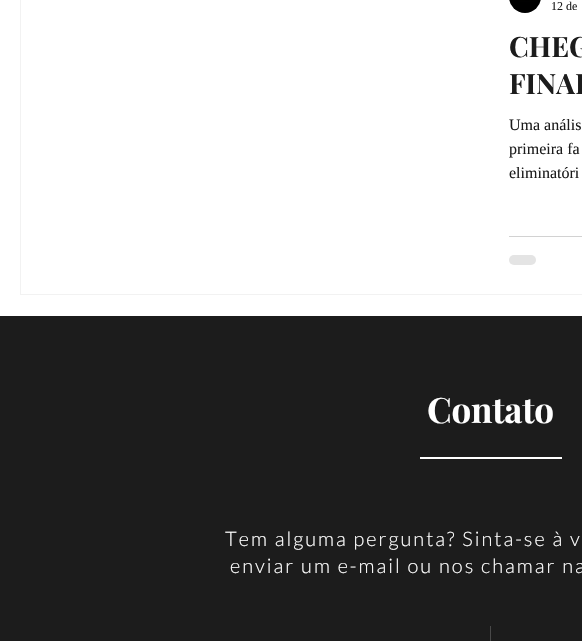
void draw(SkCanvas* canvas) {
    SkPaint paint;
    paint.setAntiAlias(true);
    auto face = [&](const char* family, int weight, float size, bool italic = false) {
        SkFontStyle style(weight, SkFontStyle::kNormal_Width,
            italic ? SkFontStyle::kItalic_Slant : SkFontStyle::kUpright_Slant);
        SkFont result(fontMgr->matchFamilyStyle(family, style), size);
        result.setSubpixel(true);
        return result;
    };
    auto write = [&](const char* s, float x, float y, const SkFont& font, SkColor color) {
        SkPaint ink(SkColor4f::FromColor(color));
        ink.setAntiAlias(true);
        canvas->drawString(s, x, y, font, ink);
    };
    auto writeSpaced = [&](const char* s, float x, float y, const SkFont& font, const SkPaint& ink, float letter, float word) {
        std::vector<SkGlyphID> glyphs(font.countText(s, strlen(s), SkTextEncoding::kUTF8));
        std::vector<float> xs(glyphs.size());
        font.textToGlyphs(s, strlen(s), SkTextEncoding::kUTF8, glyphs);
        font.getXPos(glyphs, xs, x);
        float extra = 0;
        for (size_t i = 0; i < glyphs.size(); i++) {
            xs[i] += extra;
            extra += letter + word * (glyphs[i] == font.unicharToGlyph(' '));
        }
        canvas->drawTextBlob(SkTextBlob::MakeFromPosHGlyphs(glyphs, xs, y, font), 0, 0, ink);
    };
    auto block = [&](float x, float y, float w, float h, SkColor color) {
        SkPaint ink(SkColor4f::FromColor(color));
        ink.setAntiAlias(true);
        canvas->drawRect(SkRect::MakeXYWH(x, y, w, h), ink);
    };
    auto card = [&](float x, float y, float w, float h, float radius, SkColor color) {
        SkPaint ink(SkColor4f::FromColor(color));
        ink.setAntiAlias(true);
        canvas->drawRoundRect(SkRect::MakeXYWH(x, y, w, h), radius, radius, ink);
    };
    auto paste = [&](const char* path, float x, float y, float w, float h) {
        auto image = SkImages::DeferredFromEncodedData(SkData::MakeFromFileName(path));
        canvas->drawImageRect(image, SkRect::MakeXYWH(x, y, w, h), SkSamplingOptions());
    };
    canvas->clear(SK_ColorWHITE);
    paint.setStyle(SkPaint::kStroke_Style);
    paint.setStrokeWidth(1);
    paint.setColor(SkColorSetRGB(242, 242, 242));
    canvas->drawRect(SkRect::MakeXYWH(20.5f, -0.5f, 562, 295), paint);
    paste("pic1.png", 509, 0, 32, 13);
    auto kFont1 = face("Liberation Serif", 400, 12);
    write("12 de", 551, 10, kFont1, SkColorSetRGB(28, 28, 28));
    auto kFont2 = face("Playfair Display", 700, 28);
    write("CHEG", 509, 57, kFont2, SkColorSetRGB(28, 28, 28));
    write("FINAL", 509, 94, kFont2, SkColorSetRGB(28, 28, 28));
    auto kFont3 = face("Liberation Serif", 400, 16);
    write("Uma anális", 509, 130, kFont3, SkColorSetRGB(28, 28, 28));
    write("primeira fa", 509, 154, kFont3, SkColorSetRGB(28, 28, 28));
    write("eliminatóri", 509, 178, kFont3, SkColorSetRGB(28, 28, 28));
    block(509, 236, 73, 1, SkColorSetRGB(210, 210, 210));
    card(509, 255, 27, 10, 5, SkColorSetRGB(228, 228, 228));
    block(0, 316, 582, 325, SkColorSetRGB(28, 28, 28));
    auto kFont4 = face("Playfair Display", 700, 35);
    paint.setStyle(SkPaint::kFill_Style);
    paint.setColor(SK_ColorWHITE);
    writeSpaced("Contato", 427, 423, kFont4, paint, -0.25f, 0);
    block(420, 457, 142, 2, SK_ColorWHITE);
    auto kFont5 = face("Lato", 300, 20);
    writeSpaced("Tem alguma pergunta? Sinta-se à v", 225, 546, kFont5, paint, 2, 0);
    writeSpaced("enviar um e-mail ou nos chamar na", 230, 573, kFont5, paint, 2, 0);
    block(490, 626, 1, 15, SkColorSetRGB(73, 73, 73));
}
